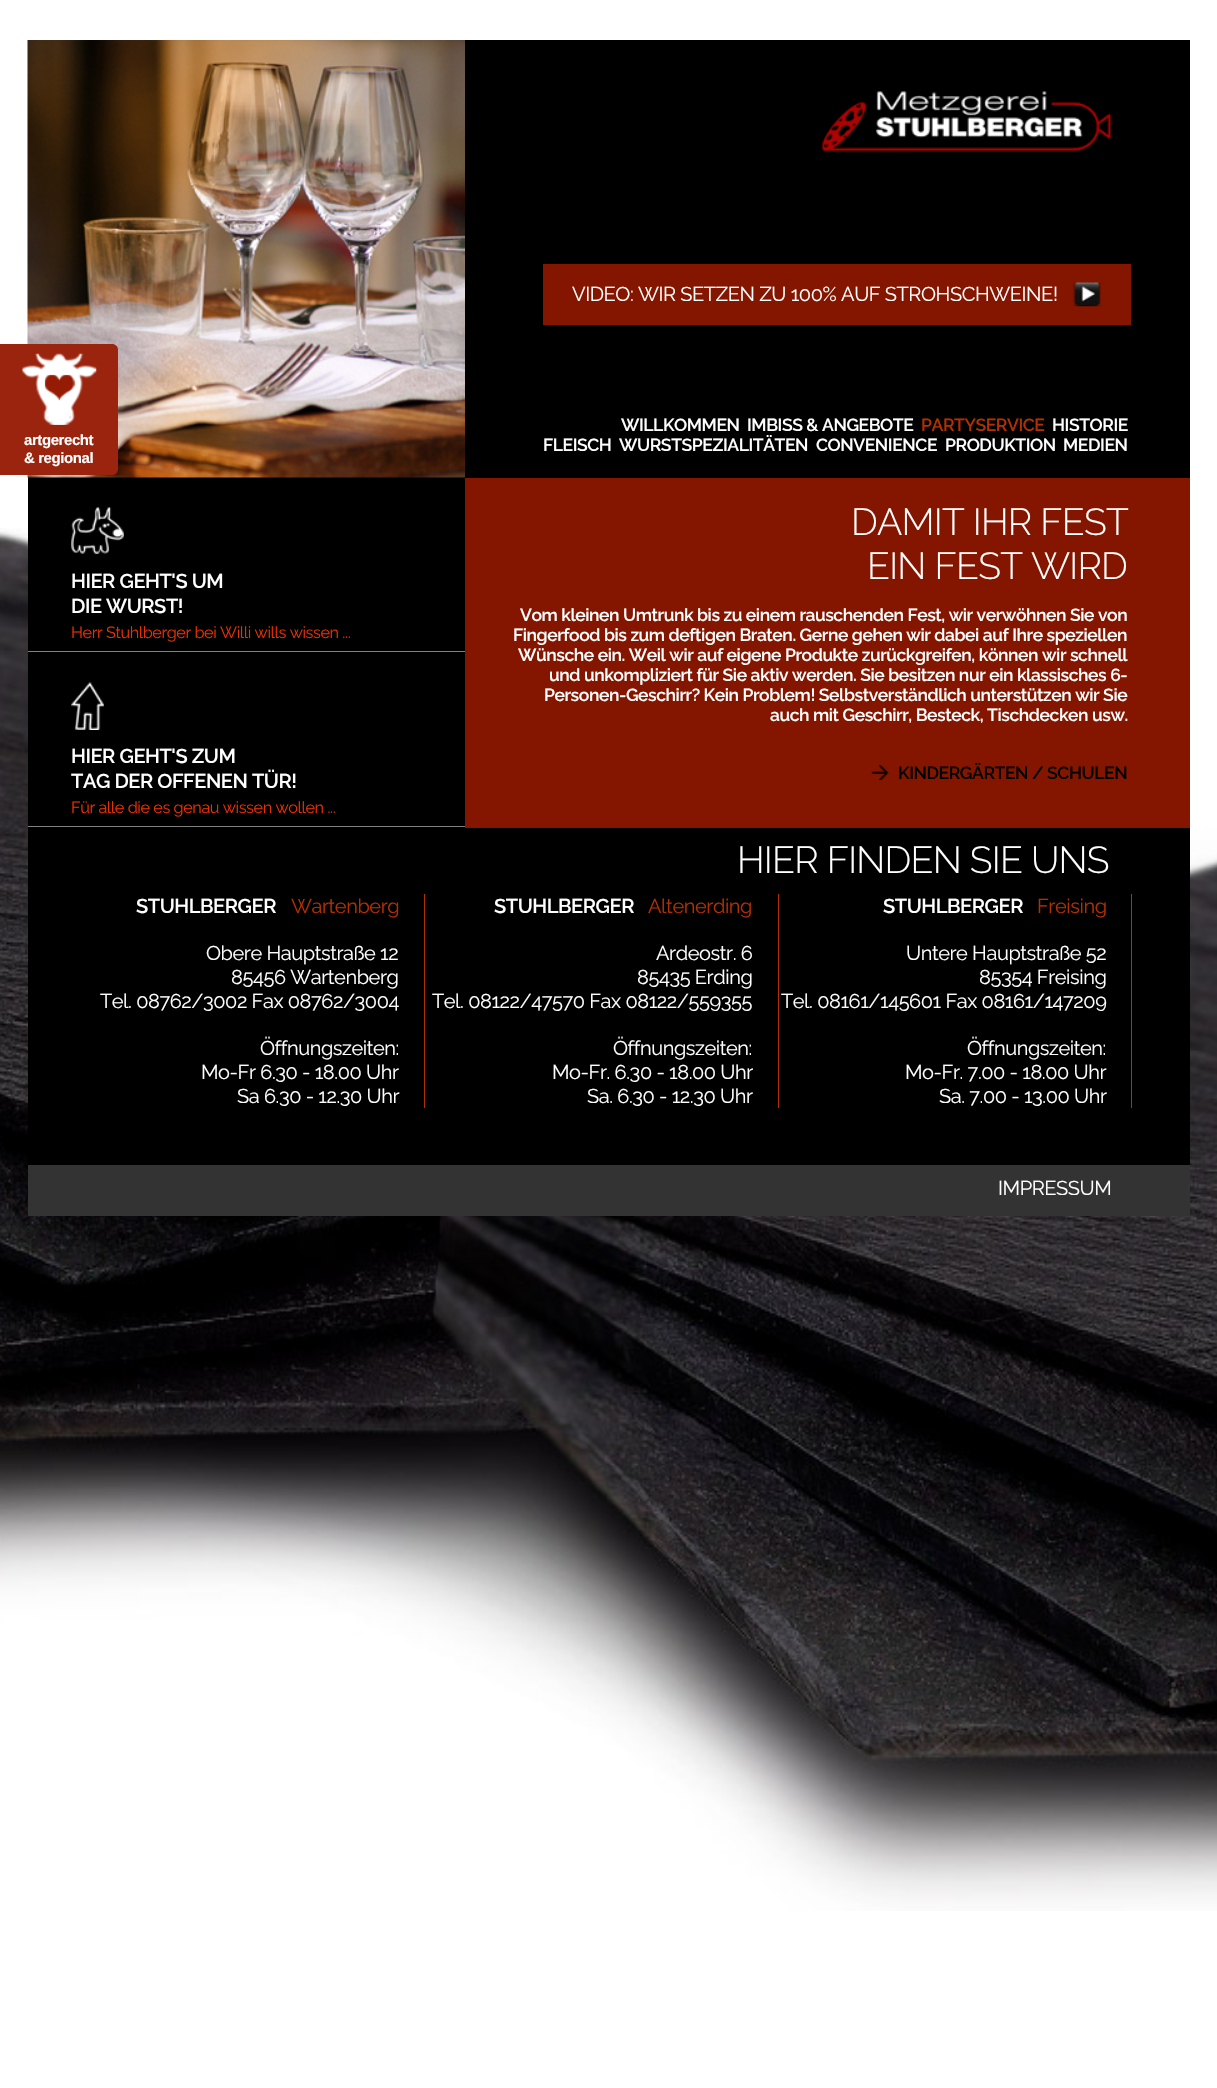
void draw(SkCanvas* canvas) {
    SkPaint paint;
    paint.setAntiAlias(true);
    auto face = [&](const char* family, int weight, float size, bool italic = false) {
        SkFontStyle style(weight, SkFontStyle::kNormal_Width,
            italic ? SkFontStyle::kItalic_Slant : SkFontStyle::kUpright_Slant);
        SkFont result(fontMgr->matchFamilyStyle(family, style), size);
        result.setSubpixel(true);
        return result;
    };
    auto writeSpaced = [&](const char* s, float x, float y, const SkFont& font, const SkPaint& ink, float letter, float word) {
        std::vector<SkGlyphID> glyphs(font.countText(s, strlen(s), SkTextEncoding::kUTF8));
        std::vector<float> xs(glyphs.size());
        font.textToGlyphs(s, strlen(s), SkTextEncoding::kUTF8, glyphs);
        font.getXPos(glyphs, xs, x);
        float extra = 0;
        for (size_t i = 0; i < glyphs.size(); i++) {
            xs[i] += extra;
            extra += letter + word * (glyphs[i] == font.unicharToGlyph(' '));
        }
        canvas->drawTextBlob(SkTextBlob::MakeFromPosHGlyphs(glyphs, xs, y, font), 0, 0, ink);
    };
    auto block = [&](float x, float y, float w, float h, SkColor color) {
        SkPaint ink(SkColor4f::FromColor(color));
        ink.setAntiAlias(true);
        canvas->drawRect(SkRect::MakeXYWH(x, y, w, h), ink);
    };
    auto paste = [&](const char* path, float x, float y, float w, float h) {
        auto image = SkImages::DeferredFromEncodedData(SkData::MakeFromFileName(path));
        canvas->drawImageRect(image, SkRect::MakeXYWH(x, y, w, h), SkSamplingOptions());
    };
    canvas->clear(SK_ColorWHITE);
    paste("pic1.png", 0, 528, 1217, 1383);
    block(28, 477, 437, 351, SK_ColorBLACK);
    paste("pic3.png", 27, 40, 438, 438);
    paint.setColor(SkColorSetRGB(154, 36, 13));
    canvas->drawPath(SkPathBuilder().moveTo(0, 344).lineTo(112, 344).cubicTo(115.5f, 344, 118, 346.5f, 118, 350).lineTo(118, 469).cubicTo(118, 472.5f, 115.5f, 475, 112, 475).lineTo(0, 475).close().detach(), paint);
    paste("pic2.png", 22, 353, 75, 72);
    auto kFont1 = face("Liberation Sans", 700, 15);
    paint.setColor(SK_ColorWHITE);
    writeSpaced("artgerecht", 24, 445, kFont1, paint, -0.42f, 0);
    writeSpaced("& regional", 24, 463, kFont1, paint, -0.42f, 0);
    block(465, 40, 725, 438, SK_ColorBLACK);
    paste("pic4.png", 822, 91, 290, 61);
    block(543, 264, 588, 61, SkColorSetRGB(132, 22, 0));
    auto kFont2 = face("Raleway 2", 100, 20);
    writeSpaced("VIDEO: WIR SETZEN ZU 100% AUF STROHSCHWEINE!", 572, 301, kFont2, paint, -0.42f, 0);
    paste("pic5.png", 1072, 282, 30, 25);
    auto kFont3 = face("Raleway", 100, 17.5f);
    writeSpaced("WILLKOMMEN", 621, 431, kFont3, paint, -0.42f, 0);
    writeSpaced("IMBISS & ANGEBOTE", 747, 431, kFont3, paint, -0.42f, 0);
    paint.setColor(SkColorSetRGB(178, 48, 0));
    writeSpaced("PARTYSERVICE", 921, 431, kFont3, paint, -0.42f, 0);
    paint.setColor(SK_ColorWHITE);
    writeSpaced("HISTORIE", 1052, 431, kFont3, paint, -0.42f, 0);
    writeSpaced("FLEISCH", 543, 451, kFont3, paint, -0.42f, 0);
    writeSpaced("WURSTSPEZIALITÄTEN", 619, 451, kFont3, paint, -0.42f, 0);
    writeSpaced("CONVENIENCE", 816, 451, kFont3, paint, -0.42f, 0);
    writeSpaced("PRODUKTION", 945, 451, kFont3, paint, -0.42f, 0);
    writeSpaced("MEDIEN", 1063, 451, kFont3, paint, -0.42f, 0);
    paste("pic6.png", 71, 507, 53, 47);
    block(28, 651, 437, 1, SkColorSetRGB(129, 128, 128));
    auto kFont4 = face("Raleway", 100, 20);
    writeSpaced("HIER GEHT'S UM", 71, 588, kFont4, paint, -0.42f, 0);
    writeSpaced("DIE WURST!", 71, 613, kFont4, paint, -0.42f, 0);
    auto kFont5 = face("Raleway 2", 100, 16.25f);
    paint.setColor(SkColorSetRGB(236, 47, 0));
    writeSpaced("Herr Stuhlberger bei Willi wills wissen ...", 71, 638, kFont5, paint, -0.42f, 0);
    paste("pic7.png", 71, 682, 33, 48);
    block(28, 826, 437, 1, SkColorSetRGB(129, 128, 128));
    paint.setColor(SK_ColorWHITE);
    writeSpaced("HIER GEHT'S ZUM", 71, 763, kFont4, paint, -0.42f, 0);
    writeSpaced("TAG DER OFFENEN TÜR!", 71, 788, kFont4, paint, -0.42f, 0);
    paint.setColor(SkColorSetRGB(236, 47, 0));
    writeSpaced("Für alle die es genau wissen wollen ...", 71, 813, kFont5, paint, -0.42f, 0);
    block(465, 478, 725, 350, SkColorSetRGB(132, 22, 0));
    auto kFont6 = face("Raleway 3", 100, 37.5f);
    paint.setColor(SK_ColorWHITE);
    writeSpaced("DAMIT IHR FEST", 851, 535, kFont6, paint, -0.75f, 0);
    writeSpaced("EIN FEST WIRD", 867, 579, kFont6, paint, -0.75f, 0);
    writeSpaced("Vom kleinen Umtrunk bis zu einem rauschenden Fest, wir verwöhnen Sie von", 520, 621, kFont3, paint, -0.42f, 0);
    writeSpaced("Fingerfood bis zum deftigen Braten. Gerne gehen wir dabei auf Ihre speziellen", 513, 641, kFont3, paint, -0.42f, 0);
    writeSpaced("Wünsche ein. Weil wir auf eigene Produkte zurückgreifen, können wir schnell", 518, 661, kFont3, paint, -0.42f, 0);
    writeSpaced("und unkompliziert für Sie aktiv werden. Sie besitzen nur ein klassisches 6-", 549, 681, kFont3, paint, -0.42f, 0);
    writeSpaced("Personen-Geschirr? Kein Problem! Selbstverständlich unterstützen wir Sie", 544, 701, kFont3, paint, -0.42f, 0);
    writeSpaced("auch mit Geschirr, Besteck, Tischdecken usw.", 770, 721, kFont3, paint, -0.42f, 0);
    paste("pic8.png", 871, 765, 18, 15);
    paint.setColor(SK_ColorBLACK);
    writeSpaced("KINDERGÄRTEN / SCHULEN", 898, 779, kFont3, paint, -0.42f, 0);
    block(28, 828, 1162, 337, SK_ColorBLACK);
    paint.setColor(SK_ColorWHITE);
    writeSpaced("HIER FINDEN SIE UNS", 737, 873, kFont6, paint, -0.75f, 0);
    block(424, 894, 1, 214, SkColorSetRGB(178, 48, 0));
    writeSpaced("STUHLBERGER", 136, 913, kFont4, paint, -0.42f, 0);
    paint.setColor(SkColorSetRGB(178, 48, 0));
    writeSpaced("Wartenberg", 291, 913, kFont2, paint, -0.42f, 0);
    paint.setColor(SK_ColorWHITE);
    writeSpaced("Obere Hauptstraße 12", 206, 960, kFont2, paint, -0.42f, 0);
    writeSpaced("85456 Wartenberg", 231, 984, kFont2, paint, -0.42f, 0);
    writeSpaced("Tel. 08762/3002 Fax 08762/3004", 100, 1008, kFont2, paint, -0.42f, 0);
    writeSpaced("Öffnungszeiten:", 260, 1055, kFont2, paint, -0.42f, 0);
    writeSpaced("Mo-Fr 6.30 - 18.00 Uhr", 201, 1079, kFont2, paint, -0.42f, 0);
    writeSpaced("Sa 6.30 - 12.30 Uhr", 237, 1103, kFont2, paint, -0.42f, 0);
    block(778, 894, 1, 214, SkColorSetRGB(178, 48, 0));
    writeSpaced("STUHLBERGER", 494, 913, kFont4, paint, -0.42f, 0);
    paint.setColor(SkColorSetRGB(178, 48, 0));
    writeSpaced("Altenerding", 648, 913, kFont2, paint, -0.42f, 0);
    paint.setColor(SK_ColorWHITE);
    writeSpaced("Ardeostr. 6", 656, 960, kFont2, paint, -0.42f, 0);
    writeSpaced("85435 Erding", 637, 984, kFont2, paint, -0.42f, 0);
    writeSpaced("Tel. 08122/47570 Fax 08122/559355", 432, 1008, kFont2, paint, -0.42f, 0);
    writeSpaced("Öffnungszeiten:", 613, 1055, kFont2, paint, -0.42f, 0);
    writeSpaced("Mo-Fr. 6.30 - 18.00 Uhr", 552, 1079, kFont2, paint, -0.42f, 0);
    writeSpaced("Sa. 6.30 - 12.30 Uhr", 587, 1103, kFont2, paint, -0.42f, 0);
    block(1131, 894, 1, 214, SkColorSetRGB(178, 48, 0));
    writeSpaced("STUHLBERGER", 883, 913, kFont4, paint, -0.42f, 0);
    paint.setColor(SkColorSetRGB(178, 48, 0));
    writeSpaced("Freising", 1037, 913, kFont2, paint, -0.42f, 0);
    paint.setColor(SK_ColorWHITE);
    writeSpaced("Untere Hauptstraße 52", 906, 960, kFont2, paint, -0.42f, 0);
    writeSpaced("85354 Freising", 979, 984, kFont2, paint, -0.42f, 0);
    writeSpaced("Tel. 08161/145601 Fax 08161/147209", 781, 1008, kFont2, paint, -0.42f, 0);
    writeSpaced("Öffnungszeiten:", 967, 1055, kFont2, paint, -0.42f, 0);
    writeSpaced("Mo-Fr. 7.00 - 18.00 Uhr", 905, 1079, kFont2, paint, -0.42f, 0);
    writeSpaced("Sa. 7.00 - 13.00 Uhr", 939, 1103, kFont2, paint, -0.42f, 0);
    block(28, 1165, 1162, 51, SkColorSetRGB(51, 51, 51));
    writeSpaced("IMPRESSUM", 998, 1195, kFont2, paint, -0.42f, 0);
}
